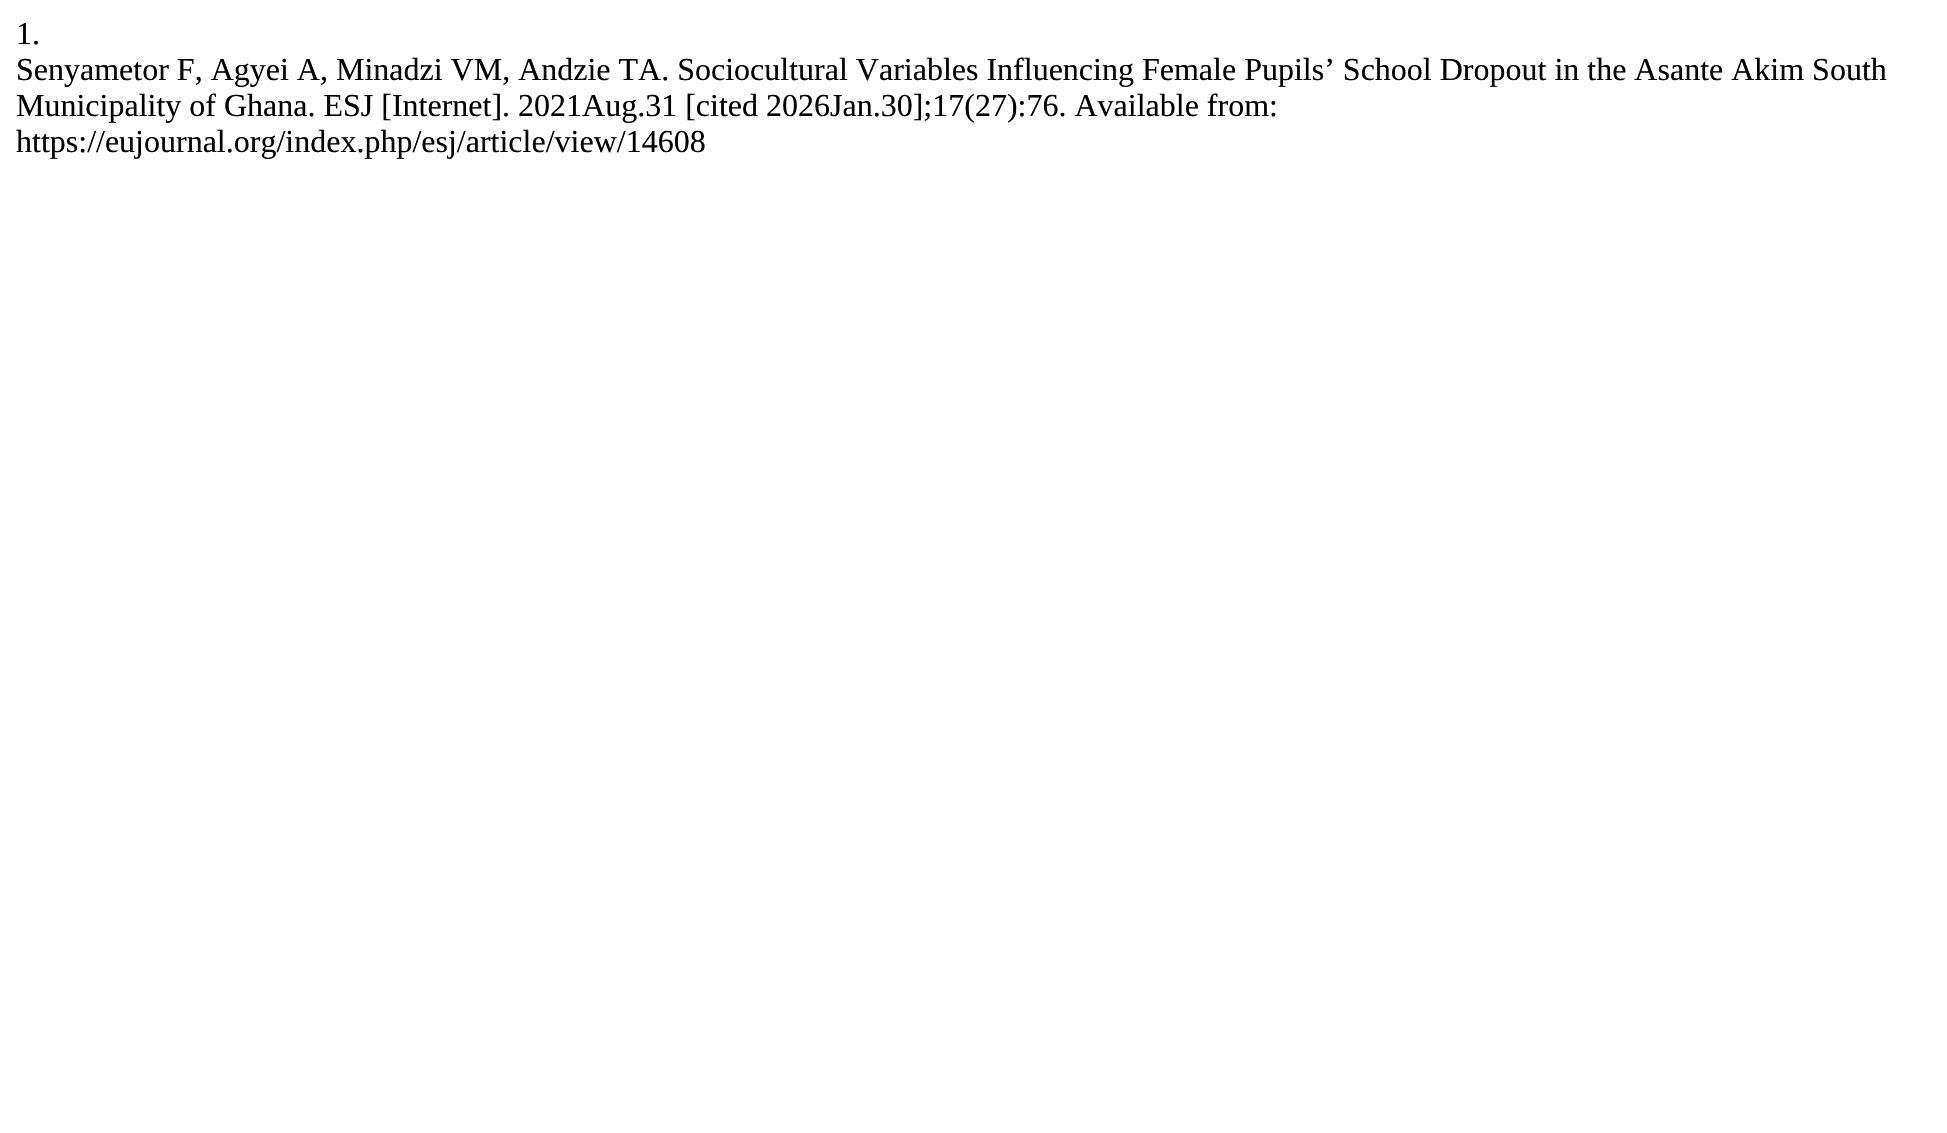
void draw(SkCanvas* canvas) {
    SkPaint paint;
    paint.setAntiAlias(true);
    auto face = [&](const char* family, int weight, float size, bool italic = false) {
        SkFontStyle style(weight, SkFontStyle::kNormal_Width,
            italic ? SkFontStyle::kItalic_Slant : SkFontStyle::kUpright_Slant);
        SkFont result(fontMgr->matchFamilyStyle(family, style), size);
        result.setSubpixel(true);
        return result;
    };
    auto write = [&](const char* s, float x, float y, const SkFont& font, SkColor color) {
        SkPaint ink(SkColor4f::FromColor(color));
        ink.setAntiAlias(true);
        canvas->drawString(s, x, y, font, ink);
    };
    canvas->clear(SK_ColorWHITE);
    auto kFont1 = face("Liberation Serif", 400, 32);
    write("1.", 16, 44, kFont1, SK_ColorBLACK);
    write("Senyametor F, Agyei A, Minadzi VM, Andzie TA. Sociocultural Variables Influencing Female Pupils’ School Dropout in the Asante Akim South", 16, 80, kFont1, SK_ColorBLACK);
    write("Municipality of Ghana. ESJ [Internet]. 2021Aug.31 [cited 2026Jan.30];17(27):76. Available from:", 16, 116, kFont1, SK_ColorBLACK);
    write("https://eujournal.org/index.php/esj/article/view/14608", 16, 152, kFont1, SK_ColorBLACK);
}
